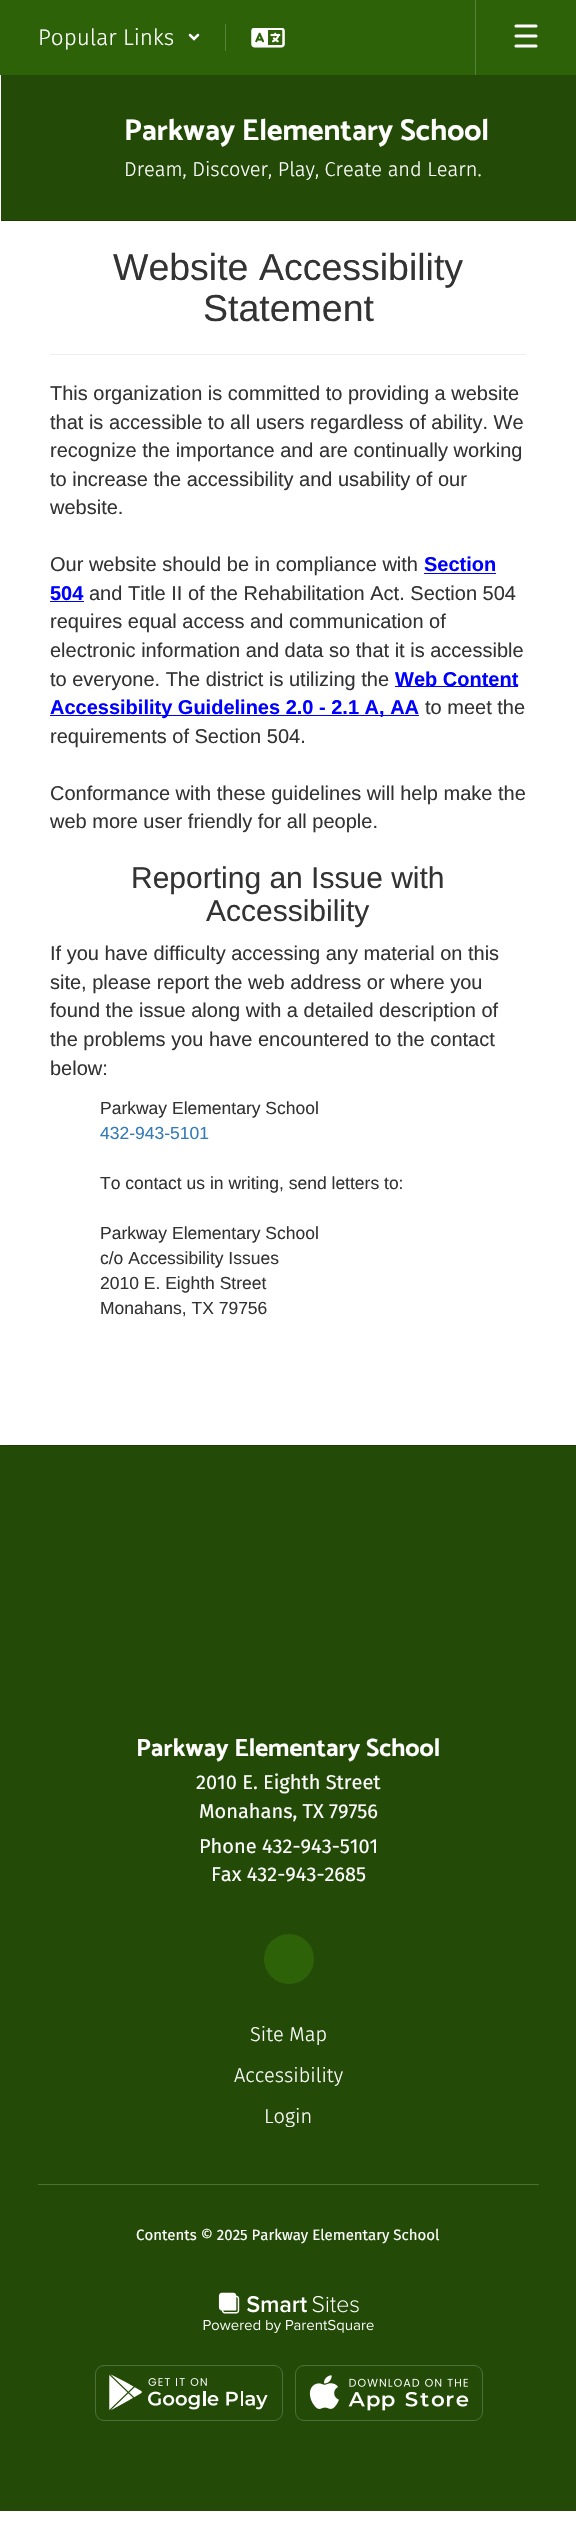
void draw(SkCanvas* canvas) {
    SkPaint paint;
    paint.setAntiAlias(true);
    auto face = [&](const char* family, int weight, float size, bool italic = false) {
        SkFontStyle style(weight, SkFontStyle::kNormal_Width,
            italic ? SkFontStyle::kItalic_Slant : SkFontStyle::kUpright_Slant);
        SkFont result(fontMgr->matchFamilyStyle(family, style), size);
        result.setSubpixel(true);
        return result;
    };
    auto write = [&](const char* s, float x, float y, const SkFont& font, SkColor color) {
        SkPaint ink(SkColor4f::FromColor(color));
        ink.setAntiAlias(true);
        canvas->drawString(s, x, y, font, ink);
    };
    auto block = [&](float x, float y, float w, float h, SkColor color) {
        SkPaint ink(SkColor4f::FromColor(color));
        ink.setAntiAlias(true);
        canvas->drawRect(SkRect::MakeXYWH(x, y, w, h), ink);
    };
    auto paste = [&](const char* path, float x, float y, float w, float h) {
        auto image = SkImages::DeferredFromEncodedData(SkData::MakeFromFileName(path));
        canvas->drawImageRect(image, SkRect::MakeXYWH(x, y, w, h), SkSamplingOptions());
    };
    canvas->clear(SK_ColorWHITE);
    block(0, 0, 576, 75, SkColorSetRGB(46, 98, 9));
    auto kFont1 = face("Fira Sans", 300, 22.5f);
    write("Popular Links", 38, 45, kFont1, SK_ColorWHITE);
    paint.setStyle(SkPaint::kStroke_Style);
    paint.setStrokeWidth(2.5f);
    paint.setStrokeCap(SkPaint::kRound_Cap);
    paint.setColor(SK_ColorWHITE);
    canvas->drawPath(SkPathBuilder().moveTo(190, 35).lineTo(194, 39).lineTo(198, 35).detach(), paint);
    block(225, 24, 1, 27, SkColorSetRGB(88, 129, 58));
    paste("pic1.png", 251, 28, 34, 20);
    block(475, 0, 1, 75, SkColorSetRGB(88, 129, 58));
    paint.setStrokeWidth(3.1f);
    canvas->drawPath(SkPathBuilder().moveTo(516, 26).lineTo(536, 26).moveTo(516, 36).lineTo(536, 36).moveTo(516, 46).lineTo(536, 46).detach(), paint);
    block(1, 75, 575, 145, SkColorSetRGB(35, 75, 7));
    auto kFont2 = face("Catamaran", 100, 30);
    write("Parkway Elementary School", 124, 140, kFont2, SK_ColorWHITE);
    auto kFont3 = face("Fira Sans", 300, 20);
    write("Dream, Discover, Play, Create and Learn.", 124, 176, kFont3, SK_ColorWHITE);
    block(1, 220, 575, 1, SkColorSetRGB(28, 60, 6));
    auto kFont4 = face("Liberation Sans", 400, 37.5f);
    write("Website Accessibility", 113, 280, kFont4, SkColorSetRGB(51, 51, 51));
    write("Statement", 203, 321, kFont4, SkColorSetRGB(51, 51, 51));
    block(50, 354, 476, 1, SkColorSetRGB(238, 238, 238));
    auto kFont5 = face("Liberation Sans", 400, 20);
    write("This organization is committed to providing a website", 50, 400, kFont5, SkColorSetRGB(51, 51, 51));
    write("that is accessible to all users regardless of ability. We", 50, 429, kFont5, SkColorSetRGB(51, 51, 51));
    write("recognize the importance and are continually working", 50, 457, kFont5, SkColorSetRGB(51, 51, 51));
    write("to increase the accessibility and usability of our", 50, 486, kFont5, SkColorSetRGB(51, 51, 51));
    write("website.", 50, 514, kFont5, SkColorSetRGB(51, 51, 51));
    write("Our website should be in compliance with", 50, 571, kFont5, SkColorSetRGB(51, 51, 51));
    auto kFont6 = face("Liberation Sans", 700, 20);
    write("Section", 424, 571, kFont6, SkColorSetRGB(0, 0, 255));
    block(424, 573, 72, 1, SkColorSetRGB(0, 0, 255));
    write("504", 50, 600, kFont6, SkColorSetRGB(0, 0, 255));
    block(50, 601, 34, 1, SkColorSetRGB(0, 0, 255));
    write("and Title II of the Rehabilitation Act. Section 504", 89, 600, kFont5, SkColorSetRGB(51, 51, 51));
    write("requires equal access and communication of", 50, 628, kFont5, SkColorSetRGB(51, 51, 51));
    write("electronic information and data so that it is accessible", 50, 657, kFont5, SkColorSetRGB(51, 51, 51));
    write("to everyone. The district is utilizing the", 50, 686, kFont5, SkColorSetRGB(51, 51, 51));
    block(395, 686, 123, 1, SkColorSetRGB(0, 0, 255));
    write("Web Content", 395, 686, kFont6, SkColorSetRGB(0, 0, 255));
    block(50, 715, 369, 1, SkColorSetRGB(0, 0, 255));
    write("Accessibility Guidelines 2.0 - 2.1 A, AA", 50, 714, kFont6, SkColorSetRGB(0, 0, 255));
    write("to meet the", 425, 714, kFont5, SkColorSetRGB(51, 51, 51));
    write("requirements of Section 504.", 50, 743, kFont5, SkColorSetRGB(51, 51, 51));
    write("Conformance with these guidelines will help make the", 50, 800, kFont5, SkColorSetRGB(51, 51, 51));
    write("web more user friendly for all people.", 50, 828, kFont5, SkColorSetRGB(51, 51, 51));
    auto kFont7 = face("Liberation Sans", 400, 30);
    write("Reporting an Issue with", 131, 888, kFont7, SkColorSetRGB(51, 51, 51));
    write("Accessibility", 206, 921, kFont7, SkColorSetRGB(51, 51, 51));
    write("If you have difficulty accessing any material on this", 50, 960, kFont5, SkColorSetRGB(51, 51, 51));
    write("site, please report the web address or where you", 50, 989, kFont5, SkColorSetRGB(51, 51, 51));
    write("found the issue along with a detailed description of", 50, 1017, kFont5, SkColorSetRGB(51, 51, 51));
    write("the problems you have encountered to the contact", 50, 1046, kFont5, SkColorSetRGB(51, 51, 51));
    write("below:", 50, 1075, kFont5, SkColorSetRGB(51, 51, 51));
    auto kFont8 = face("Liberation Sans", 400, 17.5f);
    write("Parkway Elementary School", 100, 1114, kFont8, SkColorSetRGB(51, 51, 51));
    write("432-943-5101", 100, 1139, kFont8, SkColorSetRGB(51, 122, 183));
    write("To contact us in writing, send letters to:", 100, 1189, kFont8, SkColorSetRGB(51, 51, 51));
    write("Parkway Elementary School", 100, 1239, kFont8, SkColorSetRGB(51, 51, 51));
    write("c/o Accessibility Issues", 100, 1264, kFont8, SkColorSetRGB(51, 51, 51));
    write("2010 E. Eighth Street", 100, 1289, kFont8, SkColorSetRGB(51, 51, 51));
    write("Monahans, TX 79756", 100, 1314, kFont8, SkColorSetRGB(51, 51, 51));
    block(0, 1445, 576, 1066, SkColorSetRGB(35, 75, 7));
    block(1, 1445, 575, 1, SkColorSetRGB(28, 60, 6));
    auto kFont9 = face("Catamaran", 100, 25);
    write("Parkway Elementary School", 136, 1756, kFont9, SK_ColorWHITE);
    auto kFont10 = face("Fira Sans", 400, 20);
    write("2010 E. Eighth Street", 196, 1789, kFont10, SK_ColorWHITE);
    write("Monahans, TX 79756", 199, 1818, kFont10, SK_ColorWHITE);
    write("Phone 432-943-5101", 199, 1853, kFont10, SK_ColorWHITE);
    write("Fax 432-943-2685", 211, 1881, kFont10, SK_ColorWHITE);
    paint.setStyle(SkPaint::kFill_Style);
    paint.setColor(SkColorSetRGB(46, 98, 9));
    canvas->drawCircle(289, 1959, 25, paint);
    write("Site Map", 250, 2041, kFont3, SK_ColorWHITE);
    write("Accessibility", 234, 2082, kFont3, SK_ColorWHITE);
    write("Login", 264, 2123, kFont3, SK_ColorWHITE);
    block(38, 2184, 501, 1, SkColorSetRGB(79, 111, 57));
    auto kFont11 = face("Fira Sans", 400, 15);
    write("Contents © 2025 Parkway Elementary School", 136, 2240, kFont11, SK_ColorWHITE);
    paste("pic2.png", 203, 2292, 171, 41);
    paint.setStyle(SkPaint::kStroke_Style);
    paint.setStrokeWidth(1);
    paint.setStrokeCap(SkPaint::kButt_Cap);
    paint.setColor(SkColorSetRGB(79, 111, 57));
    canvas->drawRoundRect(SkRect::MakeXYWH(95.5f, 2365.5f, 187, 55), 8.5f, 8.5f, paint);
    paste("pic3.png", 109, 2374, 159, 37);
    canvas->drawRoundRect(SkRect::MakeXYWH(295.5f, 2365.5f, 187, 55), 8.5f, 8.5f, paint);
    paste("pic4.png", 309, 2375, 160, 36);
}
